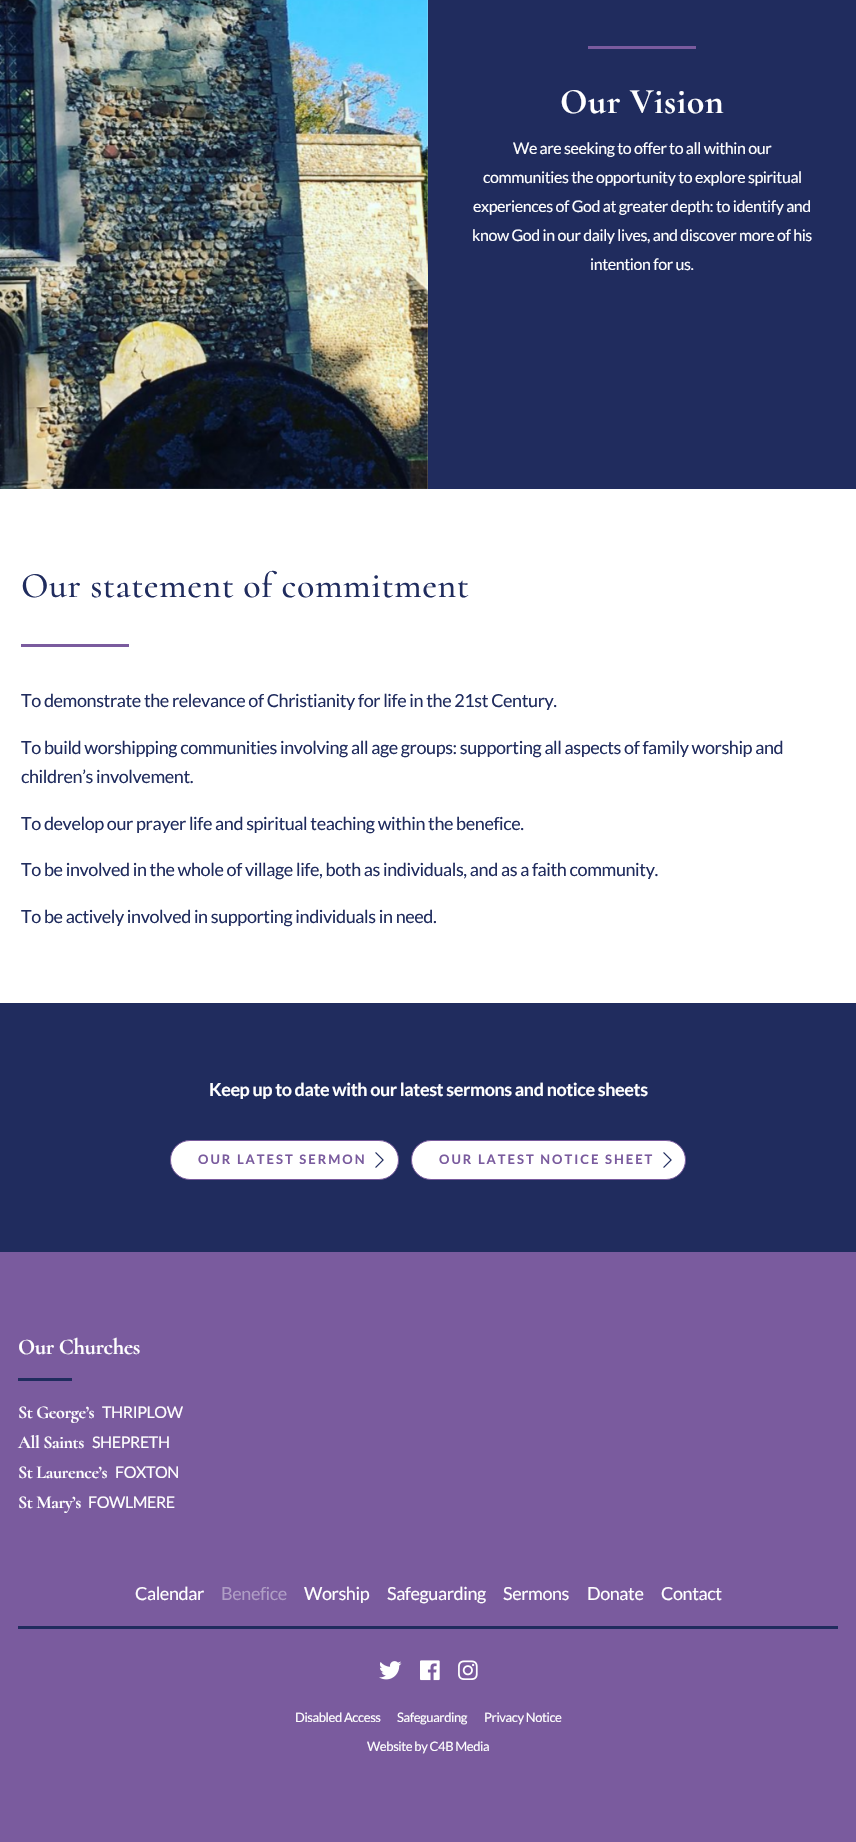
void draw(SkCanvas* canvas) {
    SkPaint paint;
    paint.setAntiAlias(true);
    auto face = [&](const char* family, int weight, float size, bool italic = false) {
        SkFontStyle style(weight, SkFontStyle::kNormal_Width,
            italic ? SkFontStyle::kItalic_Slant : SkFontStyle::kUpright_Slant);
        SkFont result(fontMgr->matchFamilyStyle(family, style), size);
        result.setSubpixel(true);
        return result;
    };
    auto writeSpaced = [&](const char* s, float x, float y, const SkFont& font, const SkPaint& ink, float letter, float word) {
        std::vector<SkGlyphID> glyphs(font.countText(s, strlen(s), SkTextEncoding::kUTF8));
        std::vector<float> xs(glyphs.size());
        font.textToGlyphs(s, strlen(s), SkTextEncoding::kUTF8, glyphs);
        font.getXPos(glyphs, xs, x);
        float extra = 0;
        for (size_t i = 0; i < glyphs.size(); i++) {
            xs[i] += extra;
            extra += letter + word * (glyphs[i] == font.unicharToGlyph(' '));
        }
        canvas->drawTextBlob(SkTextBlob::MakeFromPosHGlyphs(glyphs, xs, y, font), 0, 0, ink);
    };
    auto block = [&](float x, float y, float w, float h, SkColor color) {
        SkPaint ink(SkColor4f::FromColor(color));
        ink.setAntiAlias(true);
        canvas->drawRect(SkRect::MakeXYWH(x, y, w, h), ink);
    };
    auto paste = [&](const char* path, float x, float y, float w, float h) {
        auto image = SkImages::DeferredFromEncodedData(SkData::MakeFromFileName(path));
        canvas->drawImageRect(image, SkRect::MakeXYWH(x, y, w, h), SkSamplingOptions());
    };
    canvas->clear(SK_ColorWHITE);
    paste("pic1.png", 0, 0, 428, 489);
    block(428, 0, 428, 489, SkColorSetRGB(32, 44, 94));
    block(588, 46, 108, 3, SkColorSetRGB(122, 91, 158));
    auto kFont1 = face("Cormorant", 700, 36);
    paint.setColor(SK_ColorWHITE);
    writeSpaced("Our Vision", 560, 113, kFont1, paint, 0.5f, 0);
    auto kFont2 = face("Lato", 400, 16);
    writeSpaced("We are seeking to offer to all within our", 513, 154, kFont2, paint, -0.4f, 0);
    writeSpaced("communities the opportunity to explore spiritual", 483, 183, kFont2, paint, -0.4f, 0);
    writeSpaced("experiences of God at greater depth: to identify and", 473, 212, kFont2, paint, -0.4f, 0);
    writeSpaced("know God in our daily lives, and discover more of his", 472, 241, kFont2, paint, -0.4f, 0);
    writeSpaced("intention for us.", 590, 270, kFont2, paint, -0.4f, 0);
    auto kFont3 = face("Cormorant", 500, 36);
    paint.setColor(SkColorSetRGB(32, 44, 94));
    writeSpaced("Our statement of commitment", 21, 597, kFont3, paint, 0.5f, 0);
    block(21, 644, 108, 3, SkColorSetRGB(122, 91, 158));
    auto kFont4 = face("Lato", 400, 18);
    writeSpaced("To demonstrate the relevance of Christianity for life in the 21st Century.", 21, 707, kFont4, paint, -0.4f, 0);
    writeSpaced("To build worshipping communities involving all age groups: supporting all aspects of family worship and", 21, 754, kFont4, paint, -0.4f, 0);
    writeSpaced("children’s involvement.", 21, 783, kFont4, paint, -0.4f, 0);
    writeSpaced("To develop our prayer life and spiritual teaching within the benefice.", 21, 830, kFont4, paint, -0.4f, 0);
    writeSpaced("To be involved in the whole of village life, both as individuals, and as a faith community.", 21, 876, kFont4, paint, -0.4f, 0);
    writeSpaced("To be actively involved in supporting individuals in need.", 21, 923, kFont4, paint, -0.4f, 0);
    block(0, 1003, 856, 249, SkColorSetRGB(32, 44, 94));
    auto kFont5 = face("Lato", 700, 18);
    paint.setColor(SK_ColorWHITE);
    writeSpaced("Keep up to date with our latest sermons and notice sheets", 209, 1096, kFont5, paint, -0.4f, 0);
    canvas->drawRoundRect(SkRect::MakeXYWH(170.5f, 1140.5f, 228, 39), 19.5f, 19.5f, paint);
    paint.setStyle(SkPaint::kStroke_Style);
    paint.setStrokeWidth(1);
    paint.setColor(SkColorSetRGB(122, 91, 158));
    canvas->drawRoundRect(SkRect::MakeXYWH(170.5f, 1140.5f, 228, 39), 19.5f, 19.5f, paint);
    auto kFont6 = face("Lato", 700, 13);
    paint.setStyle(SkPaint::kFill_Style);
    writeSpaced("OUR LATEST SERMON", 198, 1164, kFont6, paint, 2, 0);
    paste("pic2.png", 375, 1152, 9, 16);
    paint.setColor(SK_ColorWHITE);
    canvas->drawRoundRect(SkRect::MakeXYWH(411.5f, 1140.5f, 274, 39), 19.5f, 19.5f, paint);
    paint.setStyle(SkPaint::kStroke_Style);
    paint.setColor(SkColorSetRGB(122, 91, 158));
    canvas->drawRoundRect(SkRect::MakeXYWH(411.5f, 1140.5f, 274, 39), 19.5f, 19.5f, paint);
    paint.setStyle(SkPaint::kFill_Style);
    writeSpaced("OUR LATEST NOTICE SHEET", 439, 1164, kFont6, paint, 2, 0);
    paste("pic2.png", 663, 1152, 9, 16);
    block(0, 1252, 856, 590, SkColorSetRGB(122, 91, 158));
    auto kFont7 = face("Cormorant", 700, 22.5f);
    paint.setColor(SK_ColorWHITE);
    writeSpaced("Our Churches", 18, 1354, kFont7, paint, -0.4f, 0);
    block(18, 1378, 54, 3, SkColorSetRGB(32, 44, 94));
    auto kFont8 = face("Cormorant", 700, 18);
    writeSpaced("St George’s", 18, 1418, kFont8, paint, -0.4f, 0);
    writeSpaced("THRIPLOW", 102, 1418, kFont2, paint, -0.4f, 0);
    writeSpaced("All Saints", 18, 1448, kFont8, paint, -0.4f, 0);
    writeSpaced("SHEPRETH", 92, 1448, kFont2, paint, -0.4f, 0);
    writeSpaced("St Laurence’s", 18, 1478, kFont8, paint, -0.4f, 0);
    writeSpaced("FOXTON", 115, 1478, kFont2, paint, -0.4f, 0);
    writeSpaced("St Mary’s", 18, 1508, kFont8, paint, -0.4f, 0);
    writeSpaced("FOWLMERE", 88, 1508, kFont2, paint, -0.4f, 0);
    block(18, 1626, 820, 3, SkColorSetRGB(32, 44, 94));
    writeSpaced("Calendar", 135, 1600, kFont4, paint, -0.4f, 0);
    paint.setColor(SkColorSetRGB(175, 157, 197));
    writeSpaced("Benefice", 221, 1600, kFont4, paint, -0.4f, 0);
    paint.setColor(SK_ColorWHITE);
    writeSpaced("Worship", 304, 1600, kFont4, paint, -0.4f, 0);
    writeSpaced("Safeguarding", 387, 1600, kFont4, paint, -0.4f, 0);
    writeSpaced("Sermons", 503, 1600, kFont4, paint, -0.4f, 0);
    writeSpaced("Donate", 587, 1600, kFont4, paint, -0.4f, 0);
    writeSpaced("Contact", 661, 1600, kFont4, paint, -0.4f, 0);
    paste("pic3.png", 379, 1661, 23, 19);
    paste("pic4.png", 420, 1660, 20, 21);
    paste("pic5.png", 458, 1660, 20, 20);
    auto kFont9 = face("Lato", 400, 13);
    writeSpaced("Disabled Access", 295, 1722, kFont9, paint, -0.4f, 0);
    writeSpaced("Safeguarding", 397, 1722, kFont9, paint, -0.4f, 0);
    writeSpaced("Privacy Notice", 484, 1722, kFont9, paint, -0.4f, 0);
    writeSpaced("Website by C4B Media", 367, 1751, kFont9, paint, -0.4f, 0);
}
